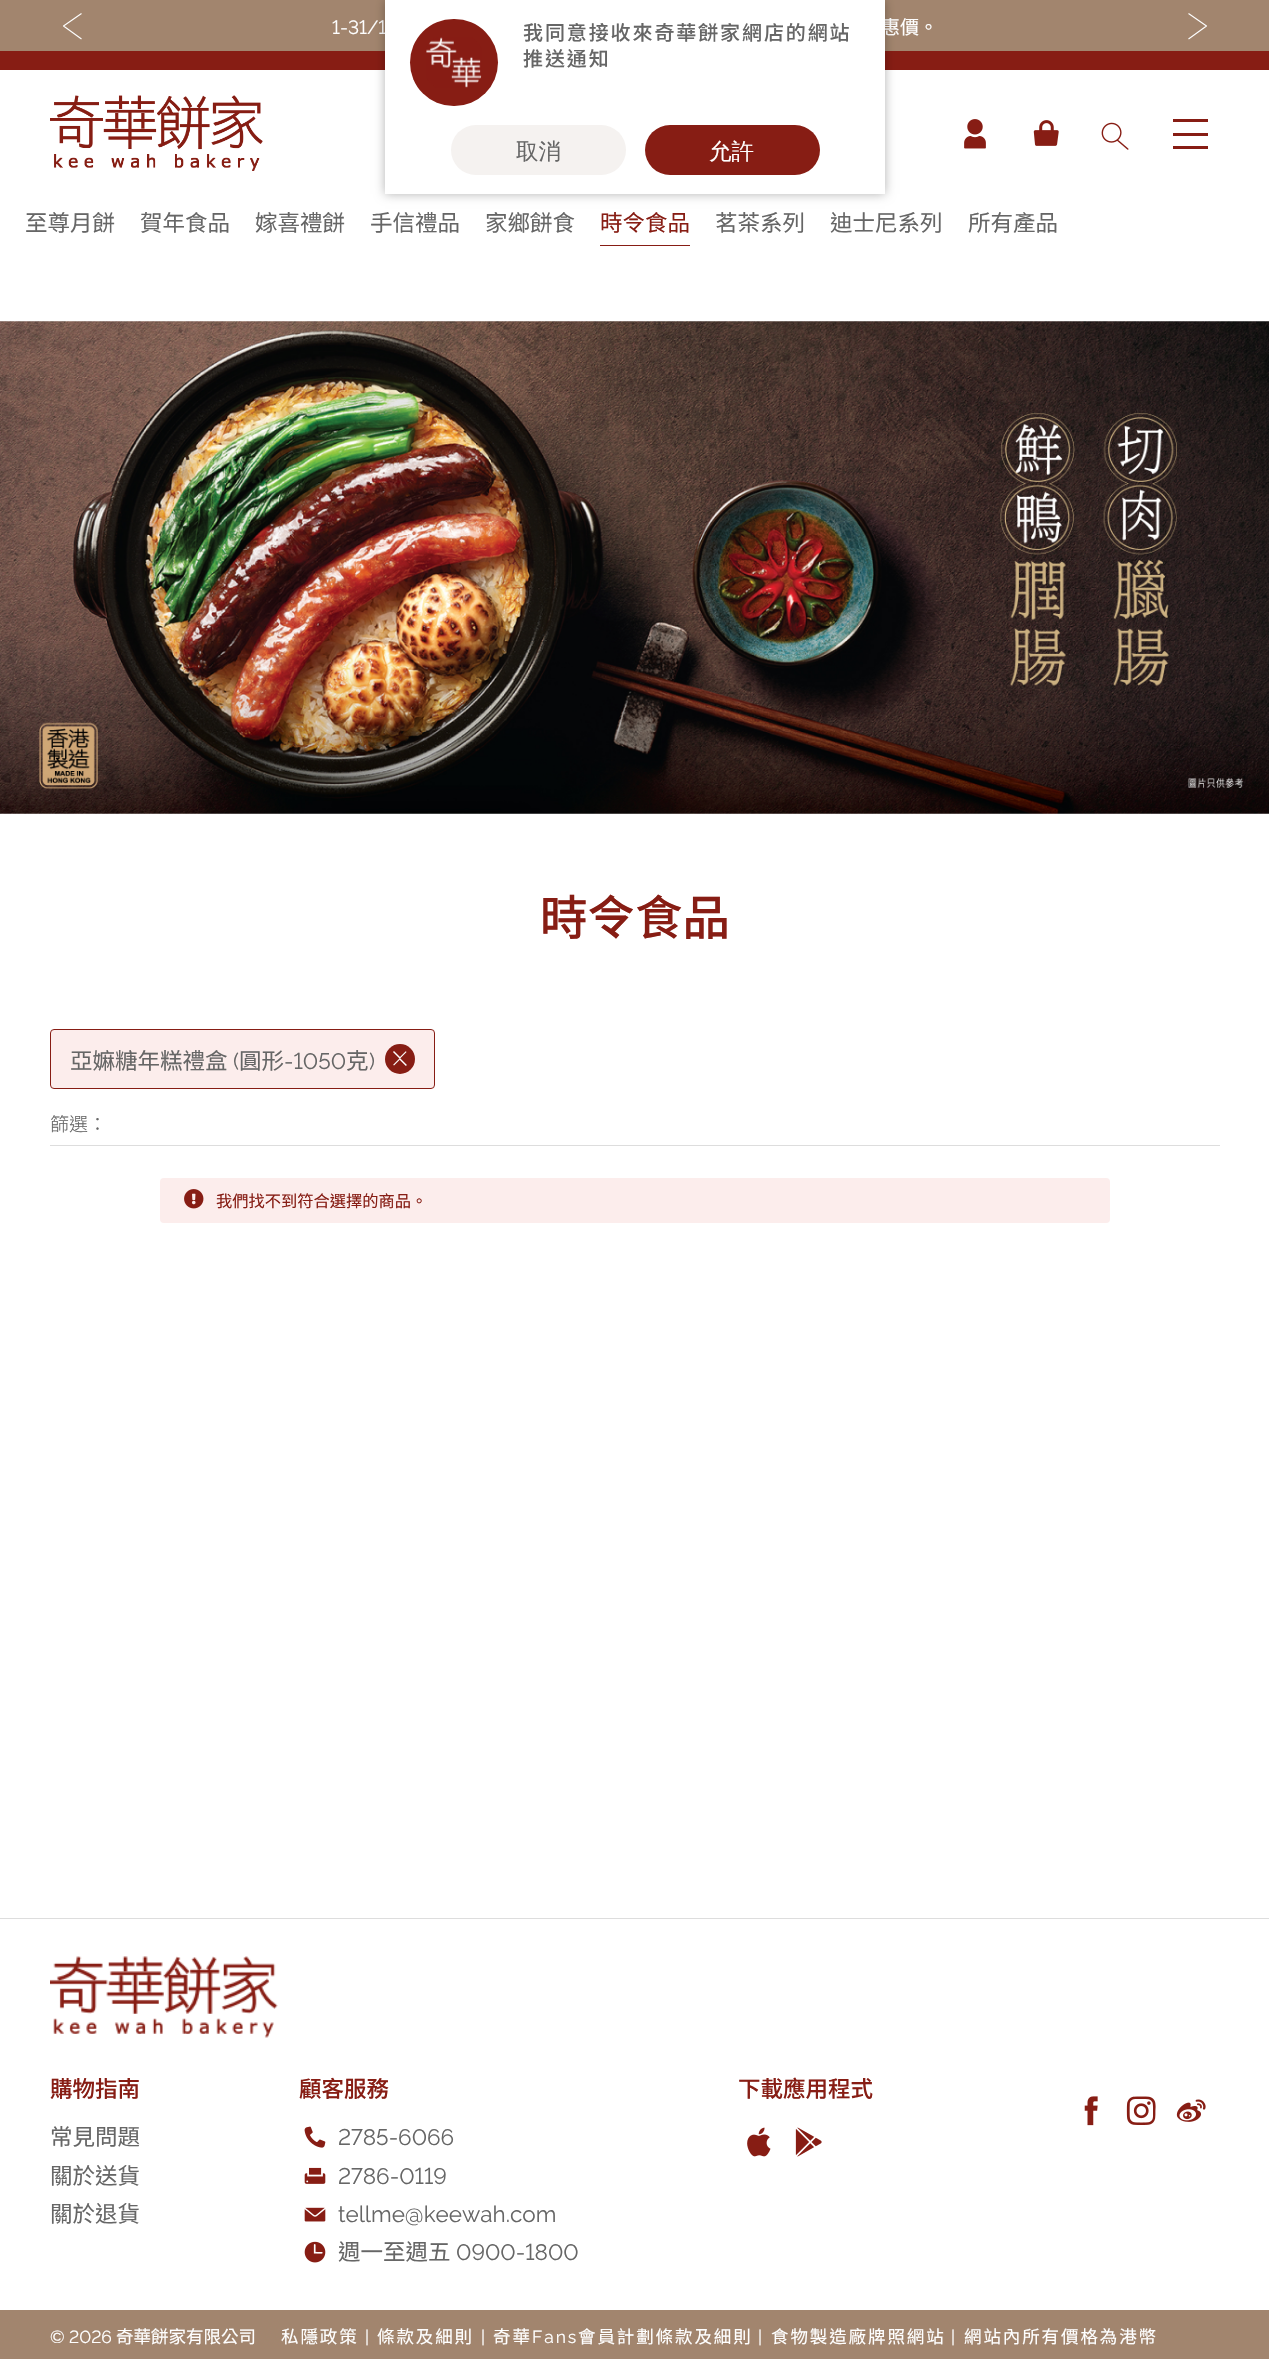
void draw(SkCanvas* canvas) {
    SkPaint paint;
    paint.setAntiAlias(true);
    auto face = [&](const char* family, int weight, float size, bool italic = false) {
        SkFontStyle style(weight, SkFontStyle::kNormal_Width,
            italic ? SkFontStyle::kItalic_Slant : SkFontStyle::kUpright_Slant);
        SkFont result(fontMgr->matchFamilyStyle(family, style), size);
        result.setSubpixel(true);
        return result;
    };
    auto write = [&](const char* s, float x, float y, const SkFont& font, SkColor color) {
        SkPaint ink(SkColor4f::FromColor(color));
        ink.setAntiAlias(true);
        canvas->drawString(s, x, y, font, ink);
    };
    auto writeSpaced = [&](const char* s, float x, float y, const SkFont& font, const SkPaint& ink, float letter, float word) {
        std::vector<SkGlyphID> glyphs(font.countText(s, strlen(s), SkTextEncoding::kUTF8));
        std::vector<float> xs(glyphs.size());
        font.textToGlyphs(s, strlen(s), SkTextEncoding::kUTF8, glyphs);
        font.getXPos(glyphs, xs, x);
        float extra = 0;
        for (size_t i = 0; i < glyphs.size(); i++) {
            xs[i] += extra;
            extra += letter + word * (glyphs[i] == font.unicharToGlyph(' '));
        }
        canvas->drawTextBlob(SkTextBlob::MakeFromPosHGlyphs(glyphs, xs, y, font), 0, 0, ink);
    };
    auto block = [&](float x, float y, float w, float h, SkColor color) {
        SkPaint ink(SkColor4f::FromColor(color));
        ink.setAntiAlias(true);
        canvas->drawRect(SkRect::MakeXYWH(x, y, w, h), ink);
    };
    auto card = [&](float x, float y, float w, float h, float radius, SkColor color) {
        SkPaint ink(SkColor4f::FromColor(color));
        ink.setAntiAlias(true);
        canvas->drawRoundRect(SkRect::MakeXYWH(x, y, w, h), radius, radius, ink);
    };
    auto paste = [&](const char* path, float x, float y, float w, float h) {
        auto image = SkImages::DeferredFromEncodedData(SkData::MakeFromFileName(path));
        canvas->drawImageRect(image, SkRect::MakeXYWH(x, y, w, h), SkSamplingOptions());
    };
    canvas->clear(SK_ColorWHITE);
    block(0, 0, 1269, 51, SkColorSetRGB(162, 133, 110));
    paint.setStyle(SkPaint::kStroke_Style);
    paint.setStrokeWidth(1.1f);
    paint.setStrokeJoin(SkPaint::kRound_Join);
    paint.setColor(SK_ColorWHITE);
    canvas->drawPath(SkPathBuilder().moveTo(81.5f, 13.5f).lineTo(63.5f, 26).lineTo(81.5f, 39).detach(), paint);
    auto kFont1 = face("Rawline", 400, 19);
    write("1-31/1", 332, 34, kFont1, SK_ColorWHITE);
    auto kFont2 = face("Noto Sans TC", 400, 19);
    write("惠價。", 881, 34, kFont2, SK_ColorWHITE);
    canvas->drawPath(SkPathBuilder().moveTo(1188.5f, 13.5f).lineTo(1206.5f, 26).lineTo(1188.5f, 39).detach(), paint);
    block(0, 51, 1269, 19, SkColorSetRGB(135, 29, 20));
    paint.setStyle(SkPaint::kFill_Style);
    paint.setColor(SkColorSetARGB(77, 0, 0, 0));
    paint.setMaskFilter(SkMaskFilter::MakeBlur(kNormal_SkBlurStyle, 5));
    canvas->drawRect(SkRect::MakeXYWH(385, 0, 500, 194), paint);
    paint.setMaskFilter(nullptr);
    block(385, 0, 500, 194, SK_ColorWHITE);
    card(410, 19, 88, 87, 43.5f, SkColorSetRGB(135, 29, 20));
    paste("pic1.png", 426, 37, 56, 51);
    auto kFont3 = face("Noto Sans TC", 500, 20);
    paint.setColor(SkColorSetRGB(102, 102, 102));
    writeSpaced("我同意接收來奇華餅家網店的網站", 523, 40, kFont3, paint, 1.9f, 0);
    writeSpaced("推送通知", 523, 66, kFont3, paint, 1.9f, 0);
    card(451, 125, 175, 50, 25, SkColorSetRGB(245, 242, 240));
    auto kFont4 = face("WenQuanYi Zen Hei", 500, 22.5f);
    write("取消", 516, 159, kFont4, SkColorSetRGB(102, 102, 102));
    card(645, 125, 175, 50, 25, SkColorSetRGB(135, 29, 20));
    write("允許", 709, 159, kFont4, SK_ColorWHITE);
    paste("pic2.png", 50, 95, 213, 76);
    paste("pic3.png", 964, 119, 22, 30);
    paste("pic4.png", 1033, 120, 26, 26);
    paste("pic5.png", 1101, 122, 28, 28);
    block(1173, 119, 35, 3, SkColorSetRGB(135, 29, 20));
    block(1173, 133, 35, 3, SkColorSetRGB(135, 29, 20));
    block(1173, 146, 35, 3, SkColorSetRGB(135, 29, 20));
    auto kFont5 = face("Noto Sans TC", 400, 22.5f);
    write("至尊月餅", 25, 231, kFont5, SkColorSetRGB(102, 102, 102));
    write("賀年食品", 140, 231, kFont5, SkColorSetRGB(102, 102, 102));
    write("嫁喜禮餅", 255, 231, kFont5, SkColorSetRGB(102, 102, 102));
    write("手信禮品", 370, 231, kFont5, SkColorSetRGB(102, 102, 102));
    write("家鄉餅食", 485, 231, kFont5, SkColorSetRGB(102, 102, 102));
    block(600, 245, 90, 1, SkColorSetRGB(135, 29, 20));
    write("時令食品", 600, 231, kFont5, SkColorSetRGB(135, 29, 20));
    write("茗茶系列", 715, 231, kFont5, SkColorSetRGB(102, 102, 102));
    write("迪士尼系列", 830, 231, kFont5, SkColorSetRGB(102, 102, 102));
    write("所有產品", 968, 231, kFont5, SkColorSetRGB(102, 102, 102));
    paste("pic6.png", 0, 321, 1269, 493);
    auto kFont6 = face("Noto Sans TC", 500, 47.5f);
    write("時令食品", 540, 935, kFont6, SkColorSetRGB(135, 29, 20));
    paint.setColor(SkColorSetRGB(252, 237, 236));
    canvas->drawRoundRect(SkRect::MakeXYWH(50.5f, 1029.5f, 384, 59), 3.5f, 3.5f, paint);
    paint.setStyle(SkPaint::kStroke_Style);
    paint.setStrokeWidth(1);
    paint.setStrokeJoin(SkPaint::kMiter_Join);
    paint.setColor(SkColorSetRGB(135, 29, 20));
    canvas->drawRoundRect(SkRect::MakeXYWH(50.5f, 1029.5f, 384, 59), 3.5f, 3.5f, paint);
    write("亞嫲糖年糕禮盒", 70, 1069, kFont5, SkColorSetRGB(102, 102, 102));
    auto kFont7 = face("Rawline", 400, 22.5f);
    write("(", 233, 1069, kFont7, SkColorSetRGB(102, 102, 102));
    write("圓形", 239, 1069, kFont5, SkColorSetRGB(102, 102, 102));
    write("-1050", 284, 1069, kFont7, SkColorSetRGB(102, 102, 102));
    write("克", 346, 1069, kFont5, SkColorSetRGB(102, 102, 102));
    write(")", 369, 1069, kFont7, SkColorSetRGB(102, 102, 102));
    paint.setStyle(SkPaint::kFill_Style);
    canvas->drawCircle(400, 1059, 15, paint);
    paste("pic7.png", 393, 1051, 14, 15);
    auto kFont8 = face("Noto Sans TC", 300, 19);
    write("篩選：", 50, 1131, kFont8, SkColorSetRGB(102, 102, 102));
    block(50, 1145, 1170, 1, SkColorSetRGB(221, 221, 221));
    card(160, 1178, 950, 45, 4, SkColorSetRGB(252, 237, 236));
    paste("pic8.png", 184, 1189, 20, 20);
    auto kFont9 = face("Noto Sans TC", 400, 16.25f);
    write("我們找不到符合選擇的商品。", 216, 1207, kFont9, SkColorSetRGB(135, 29, 20));
    block(0, 1918, 1269, 1, SkColorSetRGB(221, 221, 221));
    paste("pic9.png", 50, 1956, 228, 82);
    auto kFont10 = face("Noto Sans TC", 500, 22.5f);
    write("購物指南", 50, 2097, kFont10, SkColorSetRGB(135, 29, 20));
    write("常見問題", 50, 2145, kFont5, SkColorSetRGB(102, 102, 102));
    write("關於送貨", 50, 2184, kFont5, SkColorSetRGB(102, 102, 102));
    write("關於退貨", 50, 2222, kFont5, SkColorSetRGB(102, 102, 102));
    write("顧客服務", 299, 2097, kFont10, SkColorSetRGB(135, 29, 20));
    paste("pic10.png", 304, 2126, 22, 22);
    write("2785-6066", 338, 2145, kFont7, SkColorSetRGB(102, 102, 102));
    paste("pic11.png", 304, 2167, 22, 17);
    write("2786-0119", 338, 2184, kFont7, SkColorSetRGB(102, 102, 102));
    paste("pic12.png", 304, 2207, 22, 15);
    write("tellme@keewah.com", 338, 2222, kFont7, SkColorSetRGB(102, 102, 102));
    paste("pic13.png", 304, 2241, 22, 22);
    write("週一至週五", 338, 2260, kFont5, SkColorSetRGB(102, 102, 102));
    write("0900-1800", 456, 2260, kFont7, SkColorSetRGB(102, 102, 102));
    write("下載應用程式", 738, 2097, kFont10, SkColorSetRGB(135, 29, 20));
    paste("pic14.png", 747, 2127, 24, 30);
    paste("pic15.png", 795, 2127, 27, 30);
    paste("pic16.png", 1084, 2096, 14, 30);
    paste("pic17.png", 1126, 2096, 30, 29);
    paste("pic18.png", 1176, 2099, 30, 23);
    block(0, 2310, 1269, 49, SkColorSetRGB(162, 133, 110));
    auto kFont11 = face("Rawline", 400, 17.5f);
    write("© 2026", 50, 2343, kFont11, SK_ColorWHITE);
    auto kFont12 = face("Noto Sans TC", 400, 17.5f);
    write("奇華餅家有限公司", 116, 2343, kFont12, SK_ColorWHITE);
    paint.setColor(SK_ColorWHITE);
    writeSpaced("私隱政策", 281, 2343, kFont12, paint, 1.9f, 0);
    writeSpaced("|", 365, 2343, kFont11, paint, 1.9f, 0);
    writeSpaced("條款及細則", 377, 2343, kFont12, paint, 1.9f, 0);
    writeSpaced("|", 481, 2343, kFont11, paint, 1.9f, 0);
    writeSpaced("奇華", 493, 2343, kFont12, paint, 1.9f, 0);
    writeSpaced("Fans", 532, 2343, kFont11, paint, 1.9f, 0);
    writeSpaced("會員計劃條款及細則", 578, 2343, kFont12, paint, 1.9f, 0);
    writeSpaced("|", 758, 2343, kFont11, paint, 1.9f, 0);
    writeSpaced("食物製造廠牌照網站", 771, 2343, kFont12, paint, 1.9f, 0);
    writeSpaced("|", 951, 2343, kFont11, paint, 1.9f, 0);
    writeSpaced("網站內所有價格為港幣", 964, 2343, kFont12, paint, 1.9f, 0);
}
